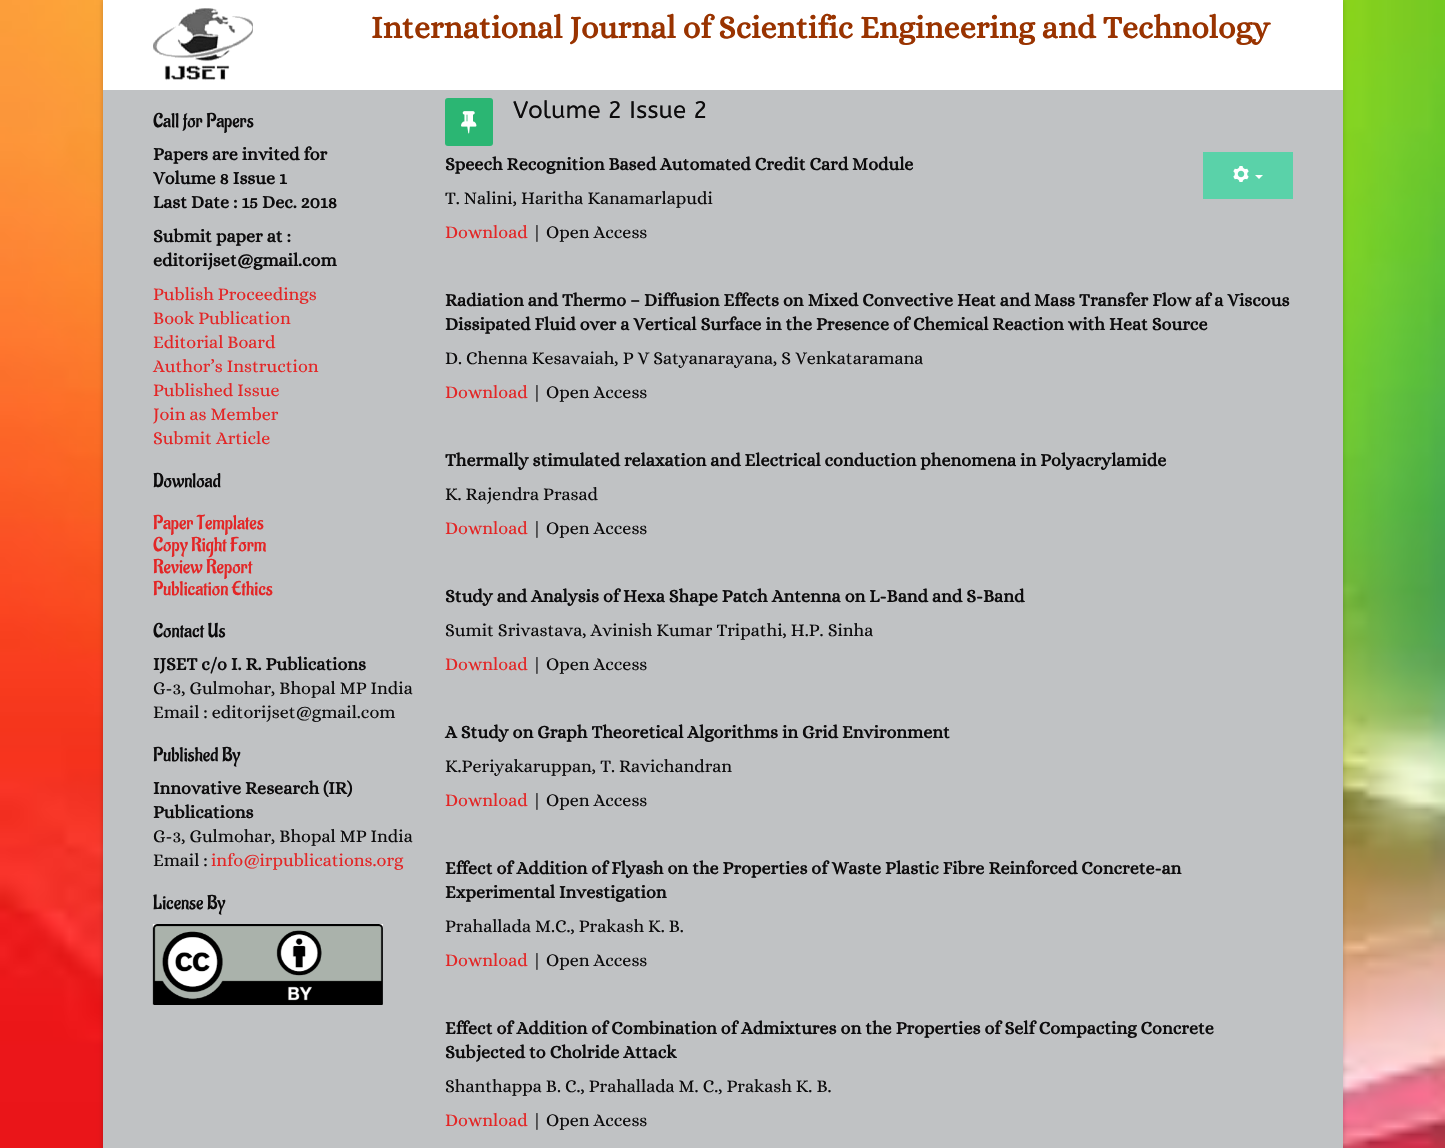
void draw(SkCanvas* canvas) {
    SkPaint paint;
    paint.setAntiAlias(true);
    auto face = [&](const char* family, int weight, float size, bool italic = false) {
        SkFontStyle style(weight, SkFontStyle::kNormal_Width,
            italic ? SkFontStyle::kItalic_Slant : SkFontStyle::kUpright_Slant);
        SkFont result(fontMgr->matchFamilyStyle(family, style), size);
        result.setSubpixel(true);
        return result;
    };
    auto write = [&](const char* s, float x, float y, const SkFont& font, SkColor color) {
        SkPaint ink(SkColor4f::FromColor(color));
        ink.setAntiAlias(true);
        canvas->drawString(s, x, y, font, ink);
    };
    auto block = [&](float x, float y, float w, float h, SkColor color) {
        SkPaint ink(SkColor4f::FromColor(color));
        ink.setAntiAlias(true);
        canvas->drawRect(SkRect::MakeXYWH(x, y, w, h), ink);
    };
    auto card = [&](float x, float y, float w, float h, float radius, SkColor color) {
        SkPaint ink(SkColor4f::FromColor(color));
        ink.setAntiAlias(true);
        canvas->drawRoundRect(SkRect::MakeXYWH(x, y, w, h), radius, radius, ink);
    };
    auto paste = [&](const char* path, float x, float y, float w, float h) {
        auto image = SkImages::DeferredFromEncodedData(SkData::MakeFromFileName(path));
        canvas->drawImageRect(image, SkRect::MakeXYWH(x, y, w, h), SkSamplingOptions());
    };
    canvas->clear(SK_ColorWHITE);
    paste("pic1.png", 0, 0, 1445, 1148);
    paint.setColor(SkColorSetARGB(51, 0, 0, 0));
    paint.setMaskFilter(SkMaskFilter::MakeBlur(kNormal_SkBlurStyle, 2.5f));
    canvas->drawRect(SkRect::MakeXYWH(103, 0, 1240, 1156), paint);
    paint.setMaskFilter(nullptr);
    block(103, 0, 1240, 90, SK_ColorWHITE);
    paste("pic2.png", 153, 8, 100, 73);
    auto kFont1 = face("Alice", 700, 32);
    write("International Journal of Scientific Engineering and Technology", 371, 38, kFont1, SkColorSetRGB(153, 51, 0));
    block(103, 90, 1240, 1058, SkColorSetRGB(192, 194, 196));
    auto kFont2 = face("Aladin", 400, 20);
    write("Call for Papers", 153, 127, kFont2, SkColorSetRGB(13, 12, 13));
    auto kFont3 = face("Alice", 700, 18);
    write("Papers are invited for", 153, 160, kFont3, SkColorSetRGB(13, 12, 13));
    write("Volume 8 Issue 1", 153, 184, kFont3, SkColorSetRGB(13, 12, 13));
    write("Last Date : 15 Dec. 2018", 153, 208, kFont3, SkColorSetRGB(13, 12, 13));
    write("Submit paper at :", 153, 242, kFont3, SkColorSetRGB(13, 12, 13));
    write("editorijset@gmail.com", 153, 266, kFont3, SkColorSetRGB(13, 12, 13));
    auto kFont4 = face("Alice", 400, 18);
    write("Publish Proceedings", 153, 300, kFont4, SkColorSetRGB(227, 38, 38));
    write("Book Publication", 153, 324, kFont4, SkColorSetRGB(227, 38, 38));
    write("Editorial Board", 153, 348, kFont4, SkColorSetRGB(227, 38, 38));
    write("Author’s Instruction", 153, 372, kFont4, SkColorSetRGB(227, 38, 38));
    write("Published Issue", 153, 396, kFont4, SkColorSetRGB(227, 38, 38));
    write("Join as Member", 153, 420, kFont4, SkColorSetRGB(227, 38, 38));
    write("Submit Article", 153, 444, kFont4, SkColorSetRGB(227, 38, 38));
    write("Download", 153, 487, kFont2, SkColorSetRGB(13, 12, 13));
    write("Paper Templates", 153, 529, kFont2, SkColorSetRGB(227, 38, 38));
    write("Copy Right Form", 153, 551, kFont2, SkColorSetRGB(227, 38, 38));
    write("Review Report", 153, 573, kFont2, SkColorSetRGB(227, 38, 38));
    write("Publication Ethics", 153, 595, kFont2, SkColorSetRGB(227, 38, 38));
    write("Contact Us", 153, 637, kFont2, SkColorSetRGB(13, 12, 13));
    write("IJSET c/o I. R. Publications", 153, 670, kFont3, SkColorSetRGB(13, 12, 13));
    write("G-3, Gulmohar, Bhopal MP India", 153, 694, kFont4, SkColorSetRGB(13, 12, 13));
    write("Email : editorijset@gmail.com", 153, 718, kFont4, SkColorSetRGB(13, 12, 13));
    write("Published By", 153, 761, kFont2, SkColorSetRGB(13, 12, 13));
    write("Innovative Research (IR)", 153, 794, kFont3, SkColorSetRGB(13, 12, 13));
    write("Publications", 153, 818, kFont3, SkColorSetRGB(13, 12, 13));
    write("G-3, Gulmohar, Bhopal MP India", 153, 842, kFont4, SkColorSetRGB(13, 12, 13));
    write("Email :", 153, 866, kFont4, SkColorSetRGB(13, 12, 13));
    write("info@irpublications.org", 211, 866, kFont4, SkColorSetRGB(227, 38, 38));
    write("License By", 153, 909, kFont2, SkColorSetRGB(13, 12, 13));
    paste("pic3.png", 152, 924, 231, 81);
    card(445, 98, 48, 48, 3, SkColorSetRGB(43, 182, 115));
    paste("pic4.png", 461, 111, 16, 23);
    auto kFont5 = face("ABeeZee", 400, 24);
    write("Volume 2 Issue 2", 513, 118, kFont5, SkColorSetRGB(13, 12, 13));
    block(1203, 152, 90, 47, SkColorSetRGB(90, 210, 169));
    paste("pic5.png", 1233, 166, 16, 16);
    paint.setColor(SK_ColorWHITE);
    canvas->drawPath(SkPathBuilder().moveTo(1255, 175).lineTo(1263, 175).lineTo(1259, 179).close().detach(), paint);
    write("Speech Recognition Based Automated Credit Card Module", 445, 170, kFont3, SkColorSetRGB(13, 12, 13));
    write("T. Nalini, Haritha Kanamarlapudi", 445, 204, kFont4, SkColorSetRGB(13, 12, 13));
    write("Download", 445, 238, kFont4, SkColorSetRGB(227, 38, 38));
    write("| Open Access", 532, 238, kFont4, SkColorSetRGB(13, 12, 13));
    write("Radiation and Thermo – Diffusion Effects on Mixed Convective Heat and Mass Transfer Flow af a Viscous", 445, 306, kFont3, SkColorSetRGB(13, 12, 13));
    write("Dissipated Fluid over a Vertical Surface in the Presence of Chemical Reaction with Heat Source", 445, 330, kFont3, SkColorSetRGB(13, 12, 13));
    write("D. Chenna Kesavaiah, P V Satyanarayana, S Venkataramana", 445, 364, kFont4, SkColorSetRGB(13, 12, 13));
    write("Download", 445, 398, kFont4, SkColorSetRGB(227, 38, 38));
    write("| Open Access", 532, 398, kFont4, SkColorSetRGB(13, 12, 13));
    write("Thermally stimulated relaxation and Electrical conduction phenomena in Polyacrylamide", 445, 466, kFont3, SkColorSetRGB(13, 12, 13));
    write("K. Rajendra Prasad", 445, 500, kFont4, SkColorSetRGB(13, 12, 13));
    write("Download", 445, 534, kFont4, SkColorSetRGB(227, 38, 38));
    write("| Open Access", 532, 534, kFont4, SkColorSetRGB(13, 12, 13));
    write("Study and Analysis of Hexa Shape Patch Antenna on L-Band and S-Band", 445, 602, kFont3, SkColorSetRGB(13, 12, 13));
    write("Sumit Srivastava, Avinish Kumar Tripathi, H.P. Sinha", 445, 636, kFont4, SkColorSetRGB(13, 12, 13));
    write("Download", 445, 670, kFont4, SkColorSetRGB(227, 38, 38));
    write("| Open Access", 532, 670, kFont4, SkColorSetRGB(13, 12, 13));
    write("A Study on Graph Theoretical Algorithms in Grid Environment", 445, 738, kFont3, SkColorSetRGB(13, 12, 13));
    write("K.Periyakaruppan, T. Ravichandran", 445, 772, kFont4, SkColorSetRGB(13, 12, 13));
    write("Download", 445, 806, kFont4, SkColorSetRGB(227, 38, 38));
    write("| Open Access", 532, 806, kFont4, SkColorSetRGB(13, 12, 13));
    write("Effect of Addition of Flyash on the Properties of Waste Plastic Fibre Reinforced Concrete-an", 445, 874, kFont3, SkColorSetRGB(13, 12, 13));
    write("Experimental Investigation", 445, 898, kFont3, SkColorSetRGB(13, 12, 13));
    write("Prahallada M.C., Prakash K. B.", 445, 932, kFont4, SkColorSetRGB(13, 12, 13));
    write("Download", 445, 966, kFont4, SkColorSetRGB(227, 38, 38));
    write("| Open Access", 532, 966, kFont4, SkColorSetRGB(13, 12, 13));
    write("Effect of Addition of Combination of Admixtures on the Properties of Self Compacting Concrete", 445, 1034, kFont3, SkColorSetRGB(13, 12, 13));
    write("Subjected to Cholride Attack", 445, 1058, kFont3, SkColorSetRGB(13, 12, 13));
    write("Shanthappa B. C., Prahallada M. C., Prakash K. B.", 445, 1092, kFont4, SkColorSetRGB(13, 12, 13));
    write("Download", 445, 1126, kFont4, SkColorSetRGB(227, 38, 38));
    write("| Open Access", 532, 1126, kFont4, SkColorSetRGB(13, 12, 13));
}
